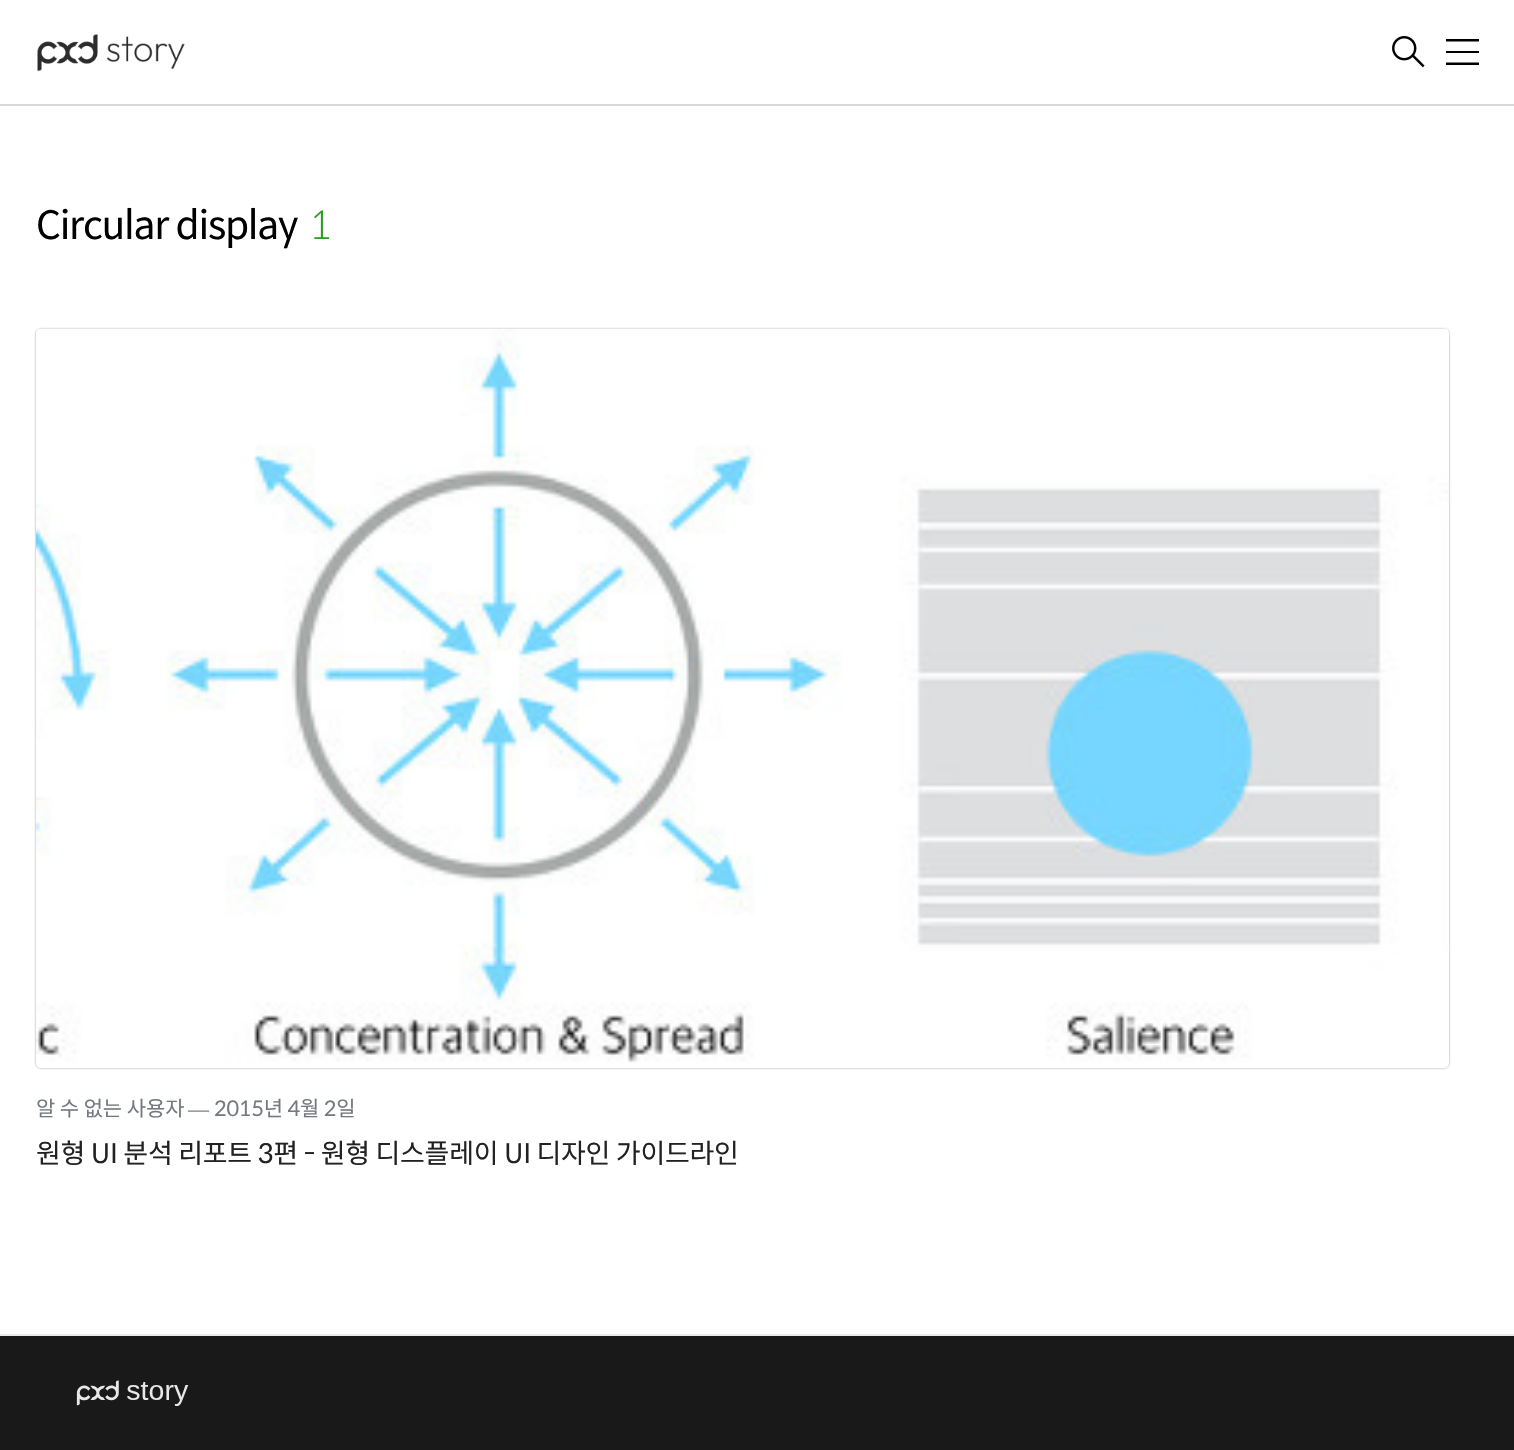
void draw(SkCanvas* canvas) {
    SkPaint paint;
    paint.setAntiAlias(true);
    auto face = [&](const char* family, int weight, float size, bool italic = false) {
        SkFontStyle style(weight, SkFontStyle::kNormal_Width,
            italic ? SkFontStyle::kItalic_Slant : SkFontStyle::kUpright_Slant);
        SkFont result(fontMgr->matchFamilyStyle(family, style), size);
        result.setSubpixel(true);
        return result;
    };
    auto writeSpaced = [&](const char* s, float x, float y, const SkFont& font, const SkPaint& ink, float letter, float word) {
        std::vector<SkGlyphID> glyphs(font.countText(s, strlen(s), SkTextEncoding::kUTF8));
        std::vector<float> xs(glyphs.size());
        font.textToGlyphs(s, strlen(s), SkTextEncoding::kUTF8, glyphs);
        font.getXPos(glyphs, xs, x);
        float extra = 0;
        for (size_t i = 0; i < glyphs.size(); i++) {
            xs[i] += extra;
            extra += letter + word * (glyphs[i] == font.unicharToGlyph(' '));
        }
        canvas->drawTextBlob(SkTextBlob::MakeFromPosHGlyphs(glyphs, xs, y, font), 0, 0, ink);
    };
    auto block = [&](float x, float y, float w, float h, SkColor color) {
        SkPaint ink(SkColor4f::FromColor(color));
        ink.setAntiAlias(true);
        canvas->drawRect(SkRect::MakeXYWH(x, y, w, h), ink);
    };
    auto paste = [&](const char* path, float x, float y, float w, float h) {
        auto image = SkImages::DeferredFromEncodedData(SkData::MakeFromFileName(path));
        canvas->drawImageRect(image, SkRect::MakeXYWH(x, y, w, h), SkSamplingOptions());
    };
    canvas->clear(SK_ColorWHITE);
    block(0, 104, 1514, 2, SkColorSetRGB(217, 217, 217));
    paste("pic1.png", 37, 34, 148, 38);
    paste("pic2.png", 1392, 36, 33, 32);
    paint.setColor(SK_ColorBLACK);
    canvas->drawPath(SkPathBuilder(SkPathFillType::kEvenOdd).moveTo(1446, 39).lineTo(1479, 39).lineTo(1479, 41.5f).lineTo(1446, 41.5f).close().moveTo(1446, 51).lineTo(1479, 51).lineTo(1479, 53).lineTo(1446, 53).close().moveTo(1446, 62.5f).lineTo(1479, 62.5f).lineTo(1479, 65).lineTo(1446, 65).close().detach(), paint);
    auto kFont1 = face("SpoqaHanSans", 400, 39);
    writeSpaced("Circular display", 36, 239, kFont1, paint, -1.25f, 0);
    auto kFont2 = face("SpoqaHanSans", 300, 39);
    paint.setColor(SkColorSetRGB(47, 157, 39));
    writeSpaced("1", 309, 239, kFont2, paint, -1.25f, 0);
    paint.setColor(SkColorSetARGB(128, 0, 0, 0));
    paint.setMaskFilter(SkMaskFilter::MakeBlur(kNormal_SkBlurStyle, 1));
    canvas->drawRoundRect(SkRect::MakeXYWH(36, 329, 1413, 739), 5, 5, paint);
    paint.setMaskFilter(nullptr);
    paste("pic3.png", 36, 328, 1413, 740);
    auto kFont3 = face("SpoqaHanSans", 400, 21);
    paint.setColor(SkColorSetRGB(116, 121, 128));
    writeSpaced("알 수 없는 사용자", 36, 1116, kFont3, paint, -0.1f, 0);
    auto kFont4 = face("Liberation Serif", 400, 21);
    writeSpaced("―", 188, 1116, kFont4, paint, -0.1f, 0);
    writeSpaced("2015년 4월 2일", 214, 1116, kFont3, paint, -0.1f, 0);
    auto kFont5 = face("SpoqaHanSans", 400, 27);
    paint.setColor(SkColorSetRGB(34, 34, 34));
    writeSpaced("원형 UI 분석 리포트 3편 - 원형 디스플레이 UI 디자인 가이드라인", 36, 1163, kFont5, paint, -0.3f, 0);
    block(0, 1336, 1514, 114, SkColorSetRGB(25, 25, 25));
    block(0, 1334, 1514, 2, SkColorSetRGB(235, 235, 235));
    paste("pic4.png", 76, 1380, 113, 26);
}
